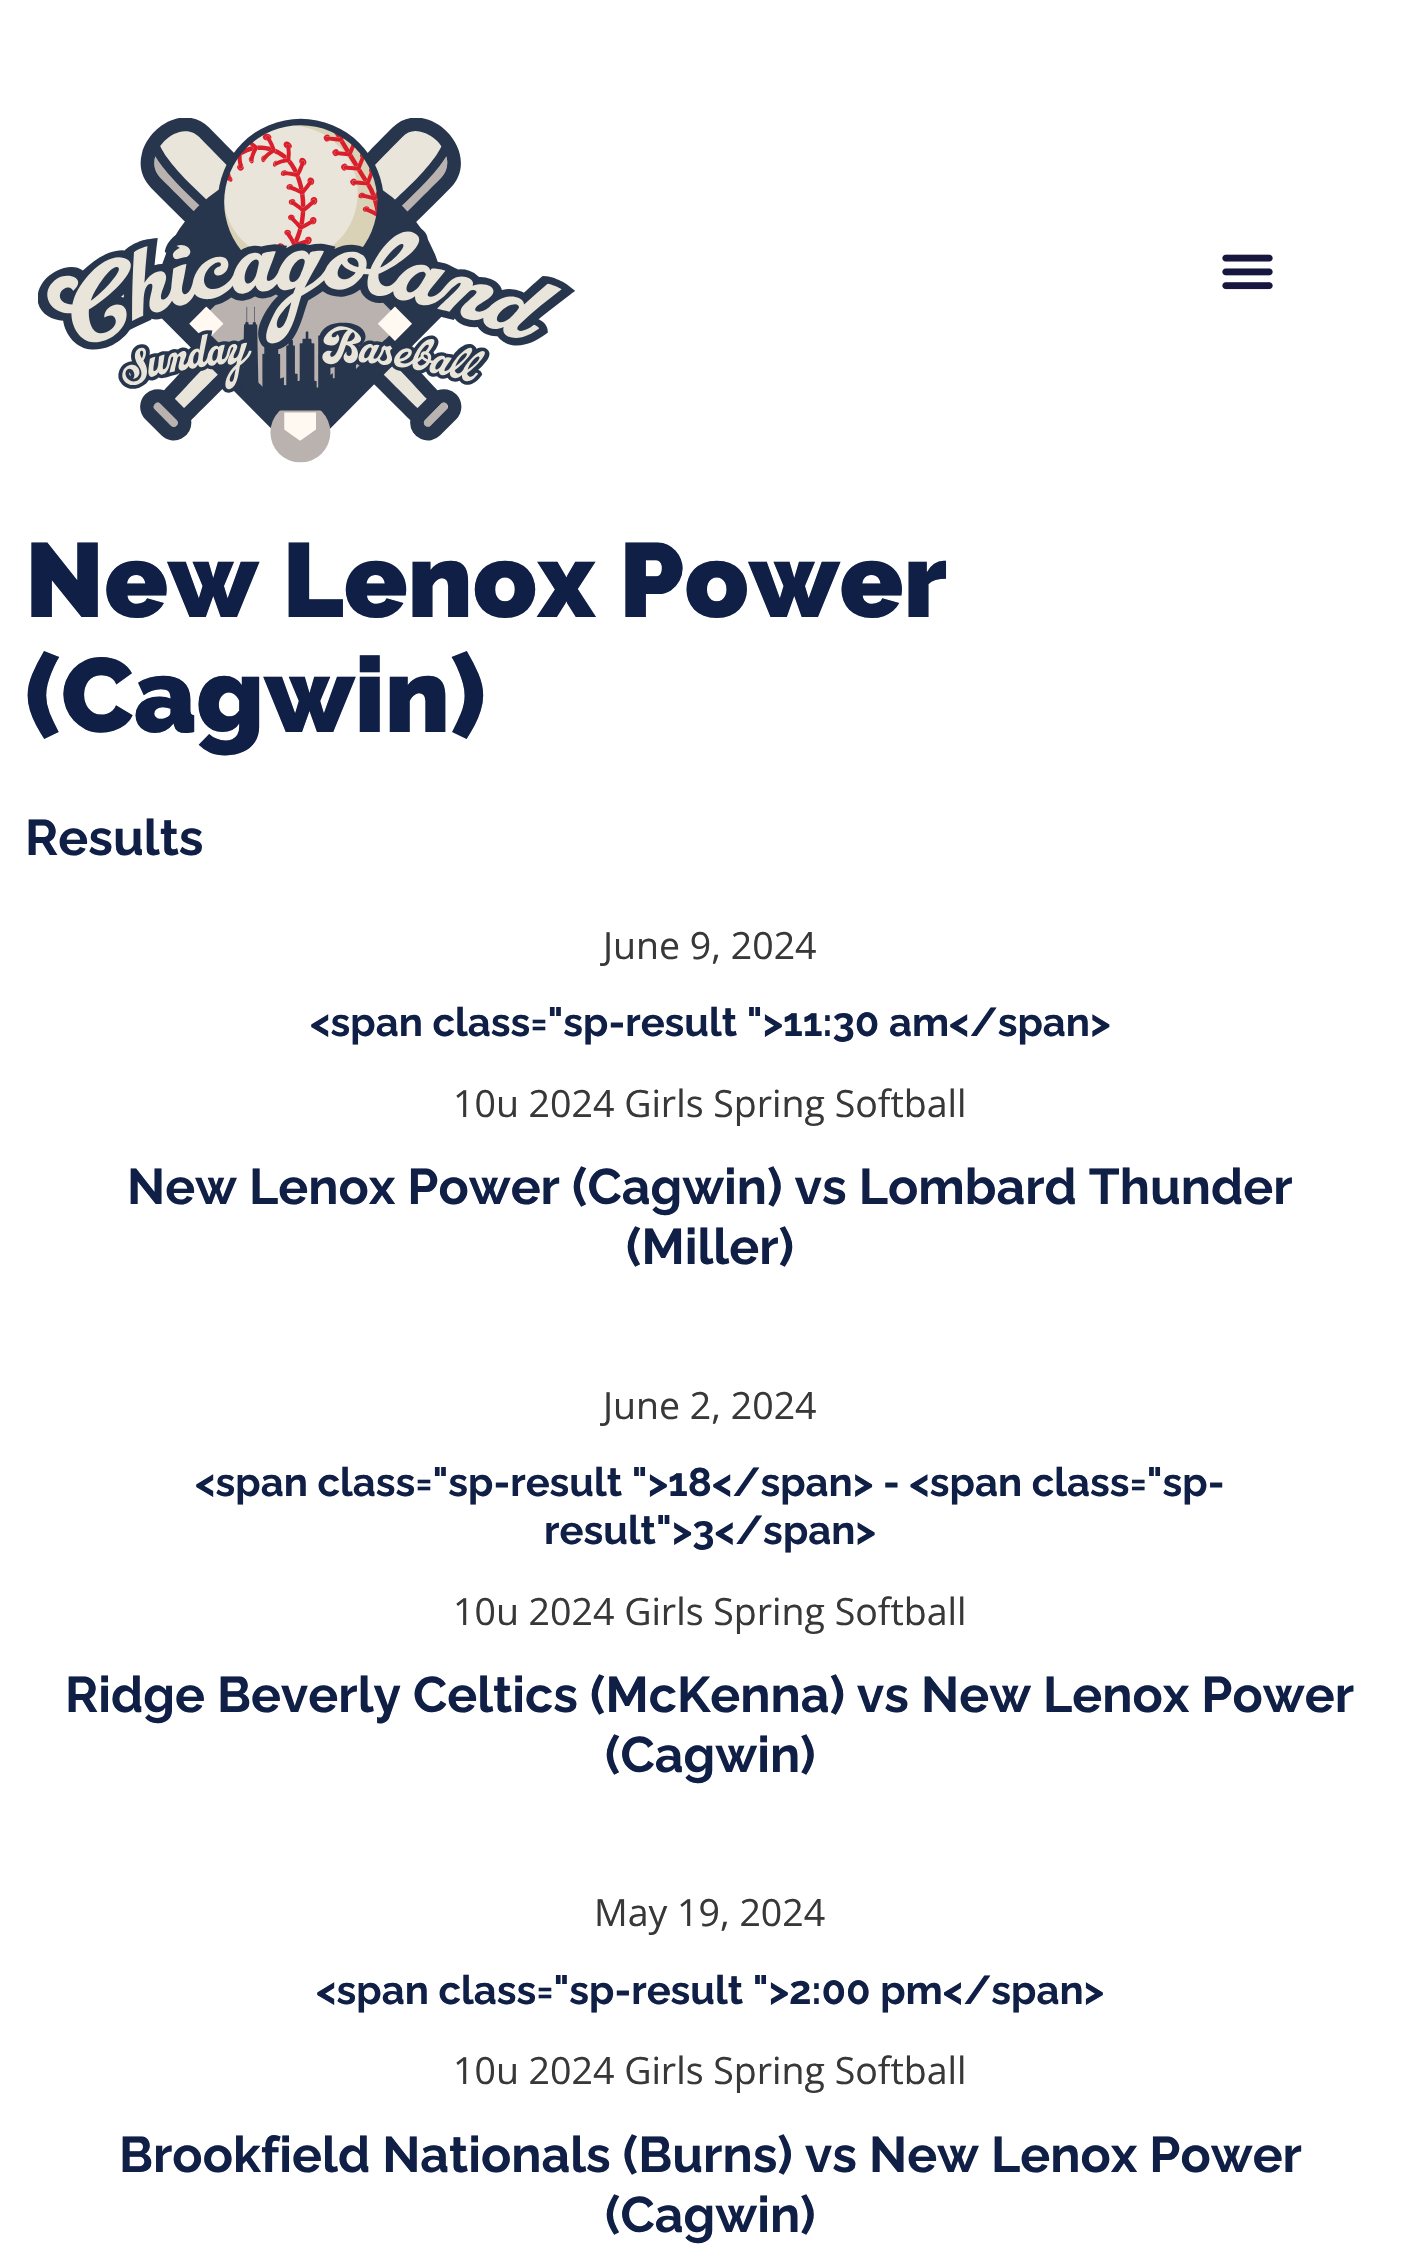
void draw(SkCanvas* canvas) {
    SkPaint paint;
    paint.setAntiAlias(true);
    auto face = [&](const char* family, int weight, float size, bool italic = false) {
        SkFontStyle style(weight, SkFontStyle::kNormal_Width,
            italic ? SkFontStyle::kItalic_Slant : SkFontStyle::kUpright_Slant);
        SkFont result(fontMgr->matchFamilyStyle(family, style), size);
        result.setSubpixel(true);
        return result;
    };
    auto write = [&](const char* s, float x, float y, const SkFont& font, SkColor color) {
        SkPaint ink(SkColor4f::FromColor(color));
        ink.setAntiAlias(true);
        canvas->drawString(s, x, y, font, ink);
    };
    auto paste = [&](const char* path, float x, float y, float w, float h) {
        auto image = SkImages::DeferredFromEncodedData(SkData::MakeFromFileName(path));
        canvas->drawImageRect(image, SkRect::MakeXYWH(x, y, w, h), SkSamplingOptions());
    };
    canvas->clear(SK_ColorWHITE);
    paste("pic1.png", 38, 118, 537, 345);
    paste("pic2.png", 1222, 254, 51, 36);
    auto kFont1 = face("Raleway", 900, 105);
    write("New Lenox Power", 25, 617, kFont1, SkColorSetRGB(16, 31, 70));
    write("(Cagwin)", 25, 732, kFont1, SkColorSetRGB(16, 31, 70));
    auto kFont2 = face("Raleway", 700, 50);
    write("Results", 25, 855, kFont2, SkColorSetRGB(16, 31, 70));
    auto kFont3 = face("Open Sans", 400, 37.5f);
    write("June 9, 2024", 603, 959, kFont3, SkColorSetRGB(56, 56, 56));
    auto kFont4 = face("Raleway", 700, 40);
    write("<span class=\"sp-result \">11:30 am</span>", 310, 1036, kFont4, SkColorSetRGB(16, 31, 70));
    write("10u 2024 Girls Spring Softball", 453, 1117, kFont3, SkColorSetRGB(56, 56, 56));
    write("New Lenox Power (Cagwin) vs Lombard Thunder", 127, 1204, kFont2, SkColorSetRGB(16, 31, 70));
    write("(Miller)", 626, 1264, kFont2, SkColorSetRGB(16, 31, 70));
    write("June 2, 2024", 603, 1419, kFont3, SkColorSetRGB(56, 56, 56));
    write("<span class=\"sp-result \">18</span> - <span class=\"sp-", 195, 1496, kFont4, SkColorSetRGB(16, 31, 70));
    write("result\">3</span>", 544, 1544, kFont4, SkColorSetRGB(16, 31, 70));
    write("10u 2024 Girls Spring Softball", 453, 1625, kFont3, SkColorSetRGB(56, 56, 56));
    write("Ridge Beverly Celtics (McKenna) vs New Lenox Power", 65, 1712, kFont2, SkColorSetRGB(16, 31, 70));
    write("(Cagwin)", 605, 1772, kFont2, SkColorSetRGB(16, 31, 70));
    write("May 19, 2024", 594, 1926, kFont3, SkColorSetRGB(56, 56, 56));
    write("<span class=\"sp-result \">2:00 pm</span>", 316, 2004, kFont4, SkColorSetRGB(16, 31, 70));
    write("10u 2024 Girls Spring Softball", 453, 2084, kFont3, SkColorSetRGB(56, 56, 56));
    write("Brookfield Nationals (Burns) vs New Lenox Power", 119, 2172, kFont2, SkColorSetRGB(16, 31, 70));
    write("(Cagwin)", 605, 2232, kFont2, SkColorSetRGB(16, 31, 70));
}
